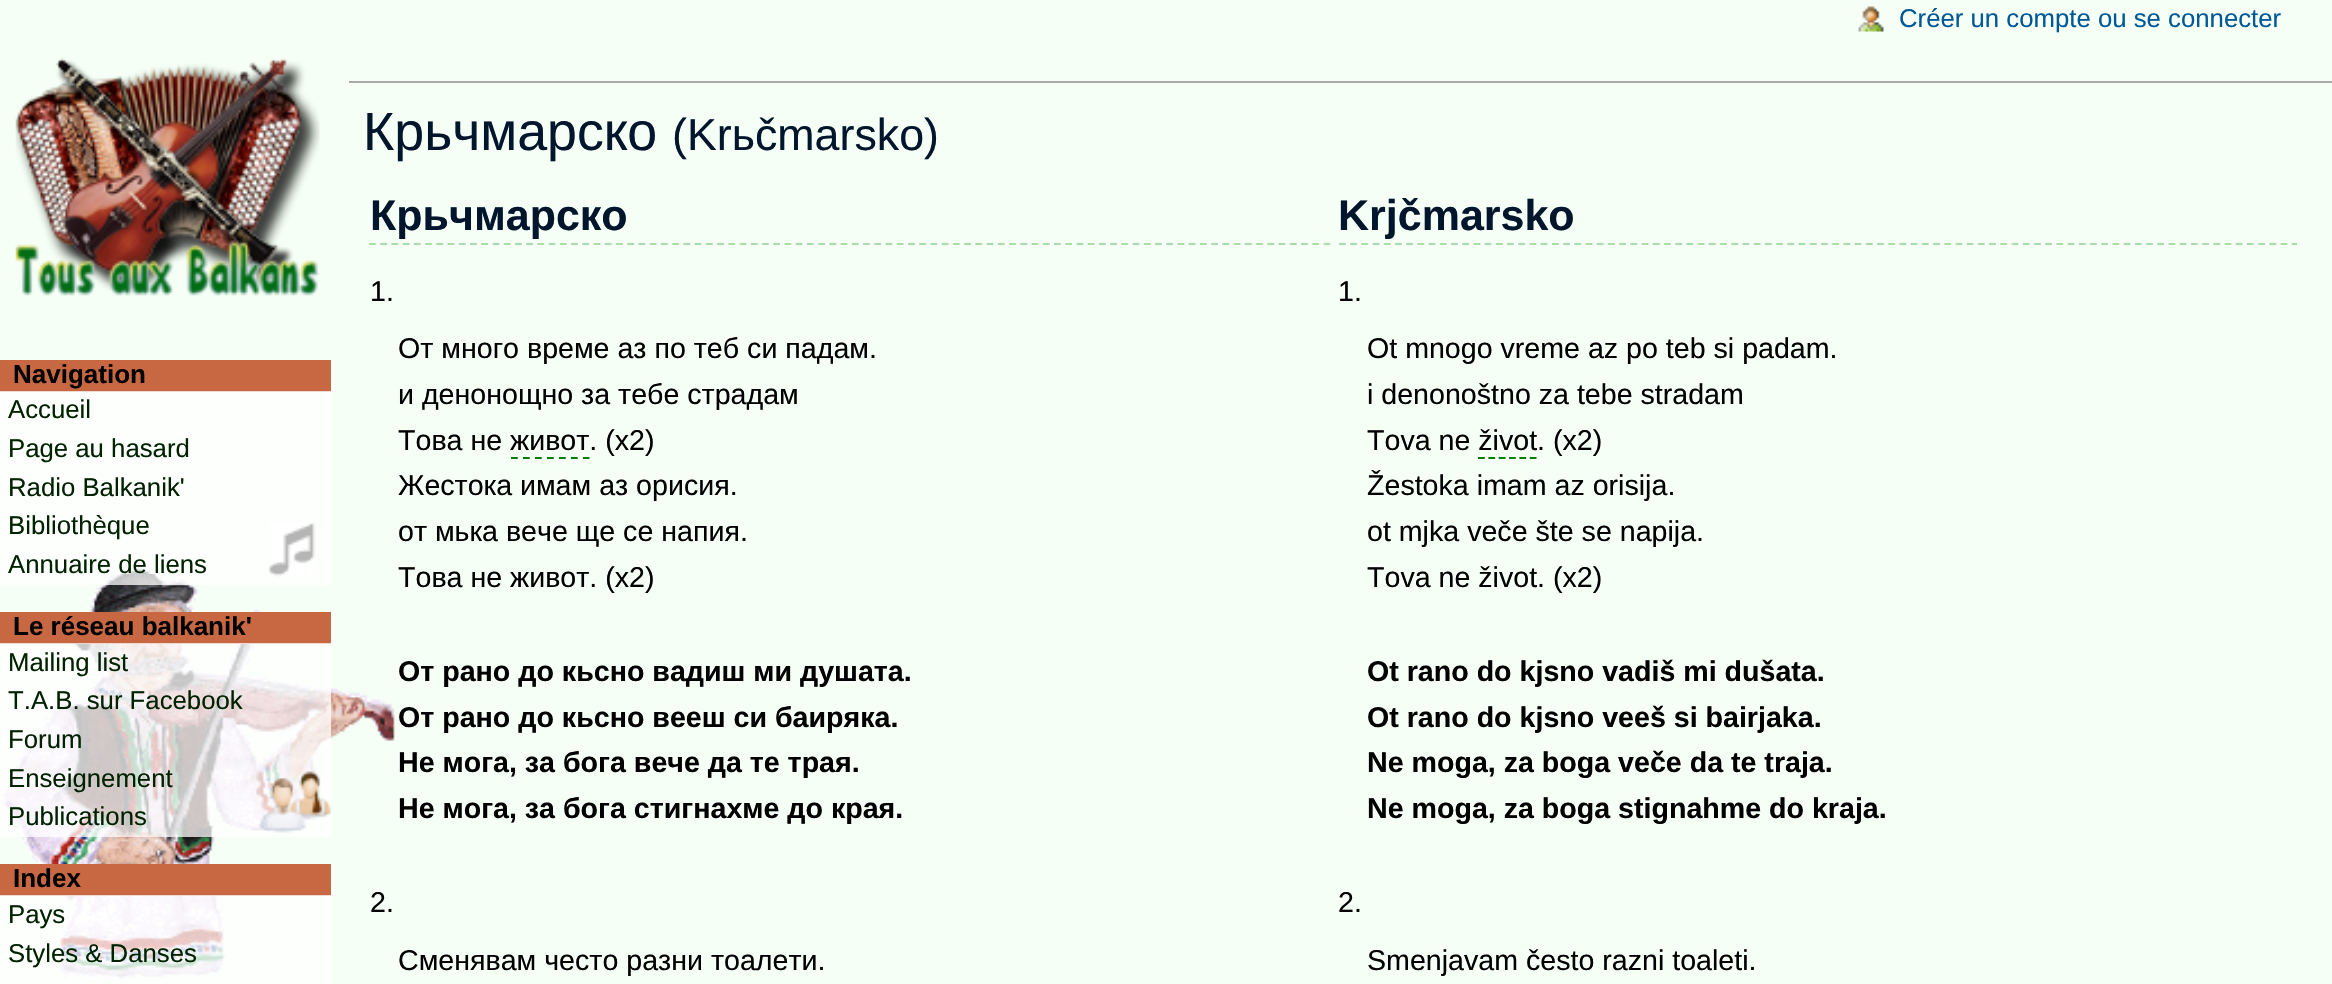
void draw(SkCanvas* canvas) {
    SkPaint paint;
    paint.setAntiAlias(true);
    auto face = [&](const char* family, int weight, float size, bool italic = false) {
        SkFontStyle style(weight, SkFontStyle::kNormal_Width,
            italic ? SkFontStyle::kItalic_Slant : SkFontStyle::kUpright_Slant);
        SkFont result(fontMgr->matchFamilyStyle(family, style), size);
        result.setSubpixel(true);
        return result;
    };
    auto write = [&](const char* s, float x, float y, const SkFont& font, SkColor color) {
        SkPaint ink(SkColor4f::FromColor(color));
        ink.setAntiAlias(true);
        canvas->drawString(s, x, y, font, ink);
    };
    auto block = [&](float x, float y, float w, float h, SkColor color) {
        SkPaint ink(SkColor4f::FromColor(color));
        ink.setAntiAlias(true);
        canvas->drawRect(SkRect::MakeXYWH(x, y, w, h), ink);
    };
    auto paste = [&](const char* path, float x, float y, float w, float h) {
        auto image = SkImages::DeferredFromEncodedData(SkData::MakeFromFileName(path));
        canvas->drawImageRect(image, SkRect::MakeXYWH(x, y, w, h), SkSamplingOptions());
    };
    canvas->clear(SkColorSetRGB(245, 255, 245));
    paste("pic1.png", 2, 566, 393, 414);
    paste("pic2.png", 1858, 6, 26, 26);
    auto kFont1 = face("Liberation Sans", 400, 25.75f);
    write("Créer un compte ou se connecter", 1899, 27, kFont1, SkColorSetRGB(0, 88, 150));
    paste("pic3.png", 15, 58, 305, 238);
    block(0, 360, 331, 32, SkColorSetRGB(199, 104, 66));
    auto kFont2 = face("Liberation Sans", 700, 26);
    write("Navigation", 13, 383, kFont2, SK_ColorBLACK);
    block(0, 391, 331, 194, SkColorSetARGB(191, 255, 255, 255));
    paste("pic4.png", 268, 522, 48, 55);
    write("Accueil", 8, 418, kFont1, SkColorSetRGB(0, 34, 0));
    write("Page au hasard", 8, 457, kFont1, SkColorSetRGB(0, 34, 0));
    write("Radio Balkanik'", 8, 496, kFont1, SkColorSetRGB(0, 34, 0));
    write("Bibliothèque", 8, 534, kFont1, SkColorSetRGB(0, 34, 0));
    write("Annuaire de liens", 8, 573, kFont1, SkColorSetRGB(0, 34, 0));
    block(0, 612, 331, 32, SkColorSetRGB(199, 104, 66));
    write("Le réseau balkanik'", 13, 635, kFont2, SK_ColorBLACK);
    block(0, 643, 331, 194, SkColorSetARGB(191, 255, 255, 255));
    paste("pic5.png", 258, 771, 73, 62);
    write("Mailing list", 8, 671, kFont1, SkColorSetRGB(0, 34, 0));
    write("T.A.B. sur Facebook", 8, 709, kFont1, SkColorSetRGB(0, 34, 0));
    write("Forum", 8, 748, kFont1, SkColorSetRGB(0, 34, 0));
    write("Enseignement", 8, 787, kFont1, SkColorSetRGB(0, 34, 0));
    write("Publications", 8, 825, kFont1, SkColorSetRGB(0, 34, 0));
    block(0, 864, 331, 32, SkColorSetRGB(199, 104, 66));
    write("Index", 13, 887, kFont2, SK_ColorBLACK);
    block(0, 895, 331, 89, SkColorSetARGB(191, 255, 255, 255));
    write("Pays", 8, 923, kFont1, SkColorSetRGB(0, 34, 0));
    write("Styles & Danses", 8, 962, kFont1, SkColorSetRGB(0, 34, 0));
    block(349, 81, 1983, 2, SkColorSetRGB(170, 170, 170));
    auto kFont3 = face("Liberation Sans", 400, 53.75f);
    write("Крьчмарско", 363, 150, kFont3, SkColorSetRGB(1, 21, 45));
    auto kFont4 = face("Liberation Sans", 400, 44.75f);
    write("(Krьčmarsko)", 672, 150, kFont4, SkColorSetRGB(1, 21, 45));
    paint.setStyle(SkPaint::kStroke_Style);
    paint.setStrokeWidth(2.2f);
    paint.setColor(SkColorSetRGB(170, 221, 170));
    paint.setPathEffect(SkDashPathEffect::Make({{6.75f, 4.48f}}, 0));
    canvas->drawPath(SkPathBuilder().moveTo(369, 244).lineTo(1330, 244).detach(), paint);
    paint.setPathEffect(nullptr);
    auto kFont5 = face("Liberation Sans", 700, 43);
    write("Крьчмарско", 370, 230, kFont5, SkColorSetRGB(1, 21, 45));
    auto kFont6 = face("Liberation Sans", 400, 28.6f);
    write("1.", 370, 301, kFont6, SK_ColorBLACK);
    write("От много време аз по теб си падам.", 398, 358, kFont6, SK_ColorBLACK);
    write("и денонощно за тебе страдам", 398, 404, kFont6, SK_ColorBLACK);
    write("Това не живот. (x2)", 398, 450, kFont6, SK_ColorBLACK);
    paint.setColor(SkColorSetRGB(0, 128, 0));
    paint.setPathEffect(SkDashPathEffect::Make({{6.75f, 5.24f}}, 0));
    canvas->drawPath(SkPathBuilder().moveTo(511, 458).lineTo(589.5f, 458).detach(), paint);
    paint.setPathEffect(nullptr);
    write("Жестока имам аз орисия.", 398, 495, kFont6, SK_ColorBLACK);
    write("от мька вече ще се напия.", 398, 541, kFont6, SK_ColorBLACK);
    write("Това не живот. (x2)", 398, 587, kFont6, SK_ColorBLACK);
    auto kFont7 = face("Liberation Sans", 700, 28.6f);
    write("От рано до кьсно вадиш ми душата.", 398, 681, kFont7, SK_ColorBLACK);
    write("От рано до кьсно вееш си баиряка.", 398, 727, kFont7, SK_ColorBLACK);
    write("Не мога, за бога вече да те трая.", 398, 772, kFont7, SK_ColorBLACK);
    write("Не мога, за бога стигнахме до края.", 398, 818, kFont7, SK_ColorBLACK);
    write("2.", 370, 912, kFont6, SK_ColorBLACK);
    write("Сменявам често разни тоалети.", 398, 970, kFont6, SK_ColorBLACK);
    paint.setColor(SkColorSetRGB(170, 221, 170));
    paint.setPathEffect(SkDashPathEffect::Make({{6.75f, 4.46f}}, 0));
    canvas->drawPath(SkPathBuilder().moveTo(1339, 244).lineTo(2297, 244).detach(), paint);
    paint.setPathEffect(nullptr);
    write("Krjčmarsko", 1338, 230, kFont5, SkColorSetRGB(1, 21, 45));
    write("1.", 1338, 301, kFont6, SK_ColorBLACK);
    write("Ot mnogo vreme az po teb si padam.", 1367, 358, kFont6, SK_ColorBLACK);
    write("i denonoštno za tebe stradam", 1367, 404, kFont6, SK_ColorBLACK);
    write("Tova ne život. (x2)", 1367, 450, kFont6, SK_ColorBLACK);
    paint.setColor(SkColorSetRGB(0, 128, 0));
    paint.setPathEffect(SkDashPathEffect::Make({{6.75f, 3.6f}}, 0));
    canvas->drawPath(SkPathBuilder().moveTo(1478, 458).lineTo(1537, 458).detach(), paint);
    paint.setPathEffect(nullptr);
    write("Žestoka imam az orisija.", 1367, 495, kFont6, SK_ColorBLACK);
    write("ot mjka veče šte se napija.", 1367, 541, kFont6, SK_ColorBLACK);
    write("Tova ne život. (x2)", 1367, 587, kFont6, SK_ColorBLACK);
    write("Ot rano do kjsno vadiš mi dušata.", 1367, 681, kFont7, SK_ColorBLACK);
    write("Ot rano do kjsno veeš si bairjaka.", 1367, 727, kFont7, SK_ColorBLACK);
    write("Ne moga, za boga veče da te traja.", 1367, 772, kFont7, SK_ColorBLACK);
    write("Ne moga, za boga stignahme do kraja.", 1367, 818, kFont7, SK_ColorBLACK);
    write("2.", 1338, 912, kFont6, SK_ColorBLACK);
    write("Smenjavam često razni toaleti.", 1367, 970, kFont6, SK_ColorBLACK);
}
